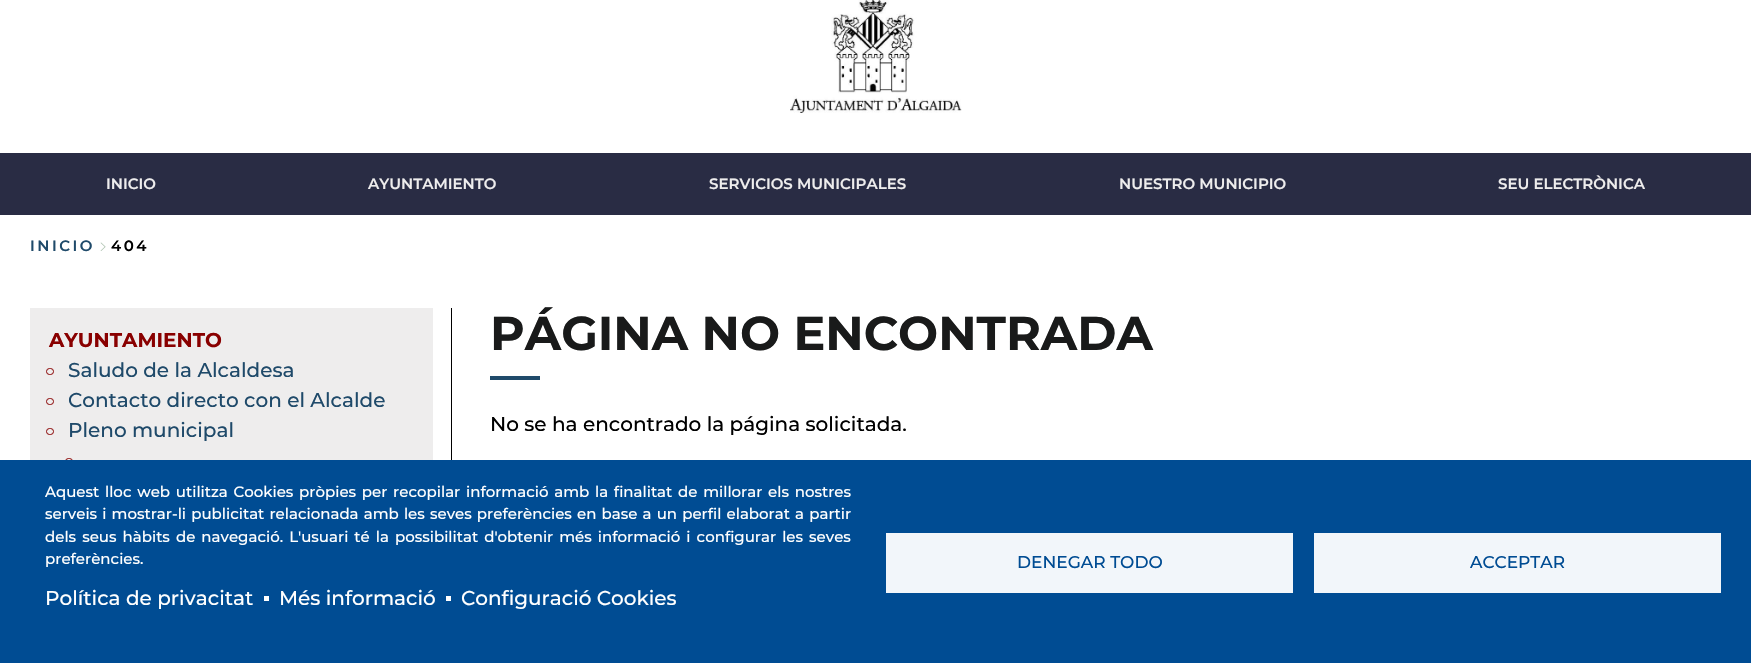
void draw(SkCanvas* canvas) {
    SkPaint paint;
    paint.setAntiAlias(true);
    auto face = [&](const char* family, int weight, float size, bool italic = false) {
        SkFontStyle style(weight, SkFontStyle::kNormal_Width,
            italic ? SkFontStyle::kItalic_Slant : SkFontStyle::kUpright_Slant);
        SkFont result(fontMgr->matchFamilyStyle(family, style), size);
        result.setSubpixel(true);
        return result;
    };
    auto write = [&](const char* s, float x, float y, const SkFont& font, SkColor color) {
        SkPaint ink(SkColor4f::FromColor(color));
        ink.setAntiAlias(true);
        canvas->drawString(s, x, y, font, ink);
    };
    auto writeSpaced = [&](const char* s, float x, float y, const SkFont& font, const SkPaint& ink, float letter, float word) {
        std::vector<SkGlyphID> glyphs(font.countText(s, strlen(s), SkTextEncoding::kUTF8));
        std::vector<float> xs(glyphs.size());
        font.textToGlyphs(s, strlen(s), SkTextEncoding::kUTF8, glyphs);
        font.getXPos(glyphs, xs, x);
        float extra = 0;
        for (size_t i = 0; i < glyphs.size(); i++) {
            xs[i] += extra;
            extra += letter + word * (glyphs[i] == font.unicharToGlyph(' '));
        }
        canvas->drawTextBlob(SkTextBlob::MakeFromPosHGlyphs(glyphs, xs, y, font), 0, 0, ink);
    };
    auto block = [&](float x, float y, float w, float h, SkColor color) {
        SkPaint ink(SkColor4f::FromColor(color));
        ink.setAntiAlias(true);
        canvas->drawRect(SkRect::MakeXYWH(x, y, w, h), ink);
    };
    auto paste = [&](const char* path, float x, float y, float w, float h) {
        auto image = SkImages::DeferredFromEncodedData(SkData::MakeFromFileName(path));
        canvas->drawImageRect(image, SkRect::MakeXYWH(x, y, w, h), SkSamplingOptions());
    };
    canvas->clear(SK_ColorWHITE);
    paste("pic1.png", 790, 0, 172, 113);
    block(0, 153, 1751, 62, SkColorSetRGB(41, 44, 68));
    auto kFont1 = face("Montserrat", 600, 15);
    write("INICIO", 106, 189, kFont1, SkColorSetRGB(238, 237, 237));
    write("AYUNTAMIENTO", 368, 189, kFont1, SkColorSetRGB(238, 237, 237));
    write("SERVICIOS MUNICIPALES", 709, 189, kFont1, SkColorSetRGB(238, 237, 237));
    write("NUESTRO MUNICIPIO", 1119, 189, kFont1, SkColorSetRGB(238, 237, 237));
    write("SEU ELECTRÒNICA", 1498, 189, kFont1, SkColorSetRGB(238, 237, 237));
    paint.setColor(SkColorSetRGB(31, 74, 106));
    writeSpaced("INICIO", 30, 251, kFont1, paint, 2.5f, 0);
    paste("pic2.png", 100, 242, 6, 9);
    paint.setColor(SK_ColorBLACK);
    writeSpaced("404", 111, 251, kFont1, paint, 2.5f, 0);
    block(451, 308, 1, 152, SK_ColorBLACK);
    block(30, 308, 403, 152, SkColorSetRGB(238, 237, 237));
    auto kFont2 = face("Montserrat", 700, 20);
    write("AYUNTAMIENTO", 49, 347, kFont2, SkColorSetRGB(137, 0, 0));
    paint.setStyle(SkPaint::kStroke_Style);
    paint.setStrokeWidth(1);
    paint.setColor(SkColorSetRGB(137, 0, 0));
    canvas->drawRoundRect(SkRect::MakeXYWH(46.5f, 368.5f, 7, 6), 3, 3, paint);
    auto kFont3 = face("Montserrat", 500, 20);
    write("Saludo de la Alcaldesa", 68, 377, kFont3, SkColorSetRGB(31, 74, 106));
    canvas->drawRoundRect(SkRect::MakeXYWH(46.5f, 398.5f, 7, 6), 3, 3, paint);
    write("Contacto directo con el Alcalde", 68, 407, kFont3, SkColorSetRGB(31, 74, 106));
    canvas->drawRoundRect(SkRect::MakeXYWH(46.5f, 428.5f, 7, 6), 3, 3, paint);
    write("Pleno municipal", 68, 437, kFont3, SkColorSetRGB(31, 74, 106));
    canvas->drawRoundRect(SkRect::MakeXYWH(65.5f, 458.5f, 7, 6), 3, 3, paint);
    auto kFont4 = face("Montserrat", 700, 47.5f);
    write("PÁGINA NO ENCONTRADA", 490, 350, kFont4, SkColorSetRGB(25, 26, 26));
    block(490, 376, 50, 4, SkColorSetRGB(31, 74, 106));
    write("No se ha encontrado la página solicitada.", 490, 431, kFont3, SK_ColorBLACK);
    block(0, 460, 1751, 203, SkColorSetRGB(0, 76, 147));
    auto kFont5 = face("Montserrat", 500, 15);
    paint.setStyle(SkPaint::kFill_Style);
    paint.setColor(SK_ColorWHITE);
    writeSpaced("Aquest lloc web utilitza Cookies pròpies per recopilar informació amb la finalitat de millorar els nostres", 45, 497, kFont5, paint, 0, 1.7f);
    writeSpaced("serveis i mostrar-li publicitat relacionada amb les seves preferències en base a un perfil elaborat a partir", 45, 519, kFont5, paint, 0, 1.1f);
    writeSpaced("dels seus hàbits de navegació. L'usuari té la possibilitat d'obtenir més informació i configurar les seves", 45, 542, kFont5, paint, 0, 2);
    write("preferències.", 45, 564, kFont5, SK_ColorWHITE);
    write("Política de privacitat", 45, 605, kFont3, SK_ColorWHITE);
    block(264, 596, 5, 5, SK_ColorWHITE);
    write("Més informació", 279, 605, kFont3, SK_ColorWHITE);
    block(446, 596, 5, 5, SK_ColorWHITE);
    write("Configuració Cookies", 461, 605, kFont3, SK_ColorWHITE);
    block(886, 533, 407, 60, SkColorSetRGB(242, 246, 250));
    auto kFont6 = face("Montserrat", 500, 17);
    write("DENEGAR TODO", 1017, 568, kFont6, SkColorSetRGB(0, 76, 147));
    block(1314, 533, 407, 60, SkColorSetRGB(242, 246, 250));
    write("ACCEPTAR", 1470, 568, kFont6, SkColorSetRGB(0, 76, 147));
}
